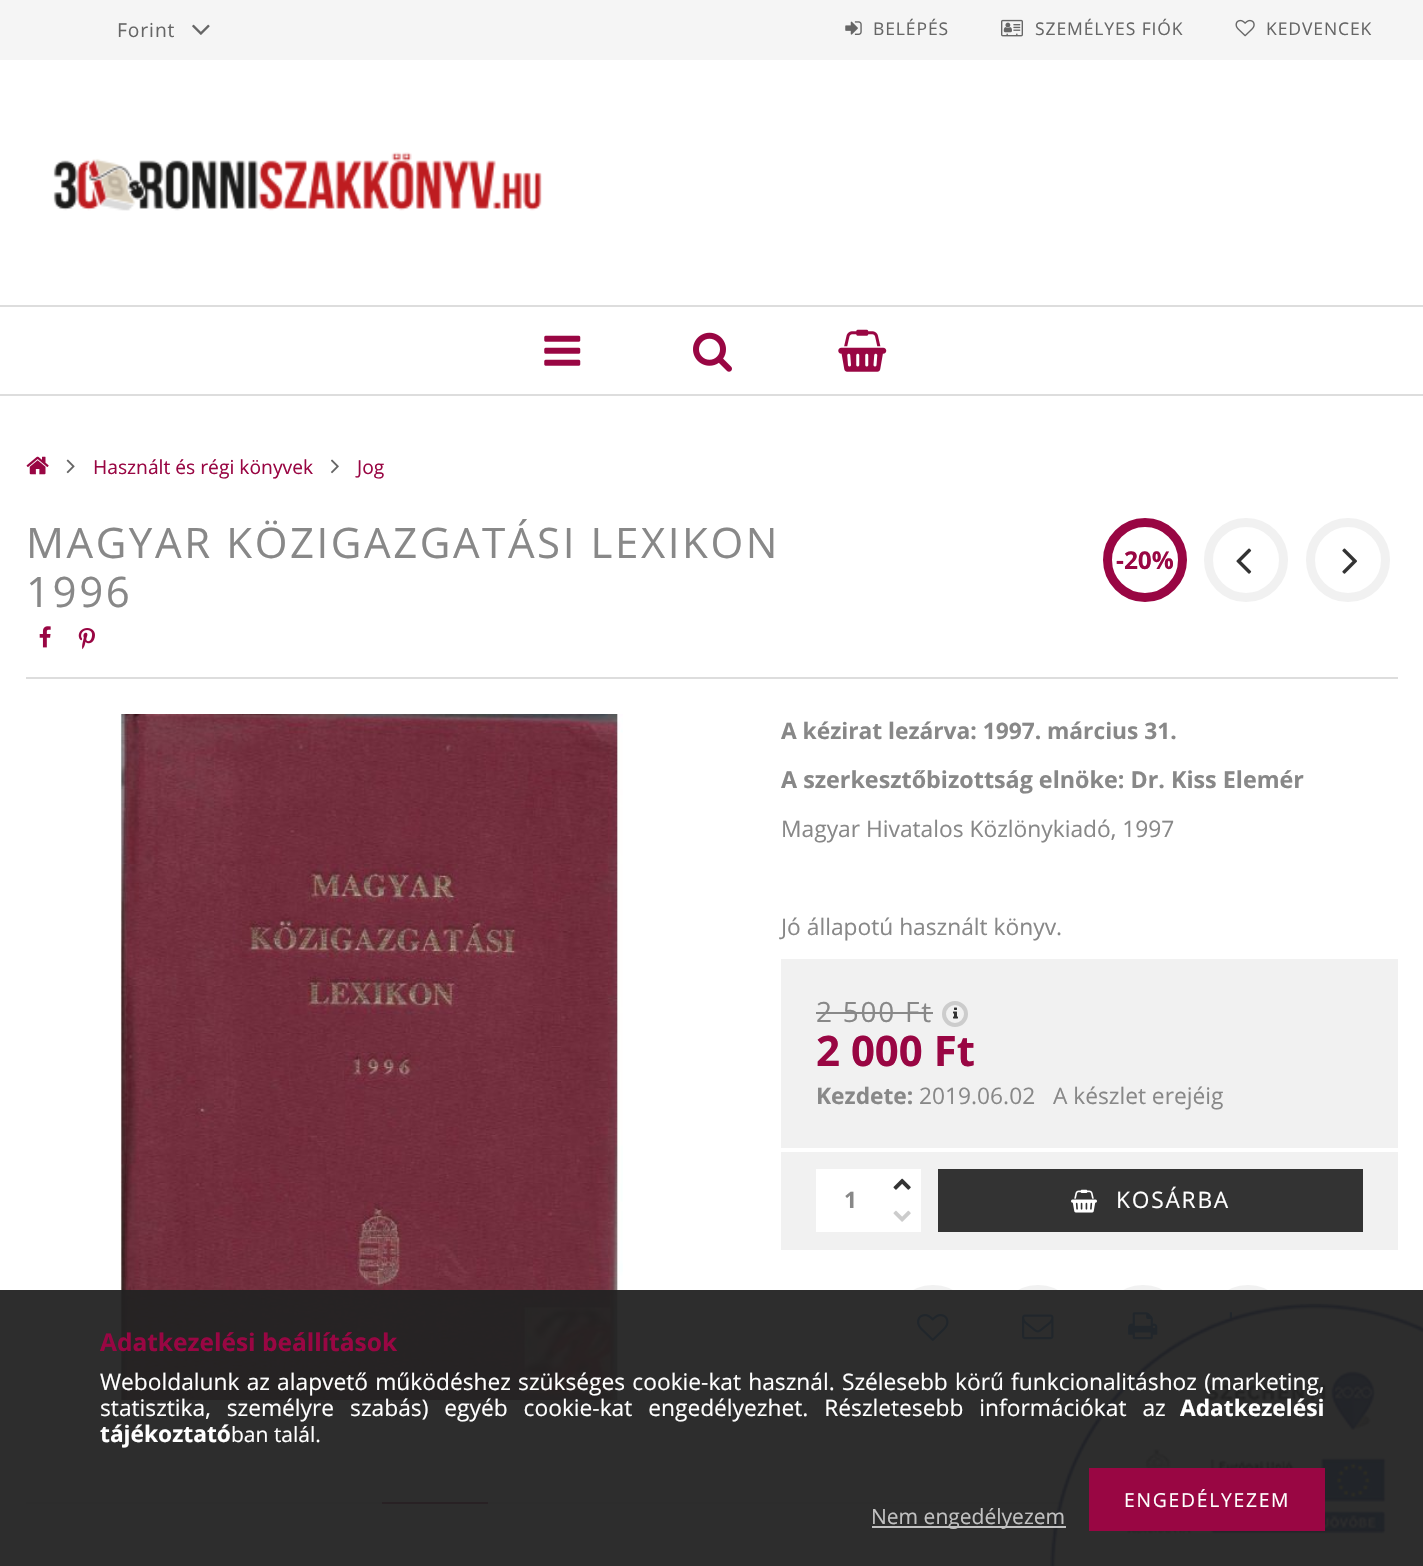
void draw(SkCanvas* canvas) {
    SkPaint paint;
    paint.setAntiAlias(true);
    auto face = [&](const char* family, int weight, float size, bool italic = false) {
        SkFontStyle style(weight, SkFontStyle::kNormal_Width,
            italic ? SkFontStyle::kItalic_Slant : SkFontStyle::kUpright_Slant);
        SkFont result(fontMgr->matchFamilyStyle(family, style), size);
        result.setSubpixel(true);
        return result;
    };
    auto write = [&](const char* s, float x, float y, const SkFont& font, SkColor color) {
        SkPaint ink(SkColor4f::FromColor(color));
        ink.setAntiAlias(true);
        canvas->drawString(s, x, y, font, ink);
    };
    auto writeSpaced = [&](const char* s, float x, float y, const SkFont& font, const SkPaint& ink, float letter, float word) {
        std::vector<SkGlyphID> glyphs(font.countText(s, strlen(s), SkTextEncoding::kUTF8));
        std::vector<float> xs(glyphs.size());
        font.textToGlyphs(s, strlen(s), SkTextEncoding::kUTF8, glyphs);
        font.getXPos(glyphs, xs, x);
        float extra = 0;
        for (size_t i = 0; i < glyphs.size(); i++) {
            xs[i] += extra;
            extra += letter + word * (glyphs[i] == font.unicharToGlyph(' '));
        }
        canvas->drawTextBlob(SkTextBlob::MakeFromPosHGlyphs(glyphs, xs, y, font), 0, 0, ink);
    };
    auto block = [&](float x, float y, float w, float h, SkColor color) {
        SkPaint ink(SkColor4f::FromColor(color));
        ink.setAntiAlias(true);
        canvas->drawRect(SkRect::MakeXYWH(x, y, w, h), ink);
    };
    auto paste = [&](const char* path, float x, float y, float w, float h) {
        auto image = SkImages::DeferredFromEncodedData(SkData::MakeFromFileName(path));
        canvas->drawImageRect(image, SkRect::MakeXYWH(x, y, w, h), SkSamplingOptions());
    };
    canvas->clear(SK_ColorWHITE);
    block(0, 0, 1423, 60, SkColorSetRGB(245, 245, 245));
    auto kFont1 = face("Open Sans", 400, 19.25f);
    paint.setColor(SkColorSetRGB(102, 102, 102));
    writeSpaced("Forint", 117, 37, kFont1, paint, 0.9f, 0);
    paste("pic1.png", 192, 24, 18, 11);
    paste("pic2.png", 845, 21, 17, 14);
    auto kFont2 = face("Open Sans", 400, 17.5f);
    writeSpaced("BELÉPÉS", 873, 35, kFont2, paint, 0.9f, 0);
    paste("pic3.png", 1001, 19, 22, 18);
    writeSpaced("SZEMÉLYES FIÓK", 1035, 35, kFont2, paint, 0.9f, 0);
    paste("pic4.png", 1235, 19, 20, 18);
    writeSpaced("KEDVENCEK", 1266, 35, kFont2, paint, 0.9f, 0);
    paste("pic5.png", 53, 152, 489, 59);
    block(0, 305, 1423, 2, SkColorSetRGB(221, 221, 221));
    block(0, 394, 1423, 2, SkColorSetRGB(221, 221, 221));
    paste("pic6.png", 544, 335, 37, 31);
    paste("pic7.png", 693, 332, 39, 40);
    paste("pic8.png", 838, 329, 49, 43);
    paste("pic9.png", 26, 456, 23, 19);
    paste("pic10.png", 66, 459, 9, 15);
    write("Használt és régi könyvek", 93, 474, kFont1, SkColorSetRGB(153, 6, 67));
    paste("pic11.png", 331, 459, 8, 15);
    write("Jog", 357, 474, kFont1, SkColorSetRGB(153, 6, 67));
    block(26, 677, 1372, 2, SkColorSetRGB(221, 221, 221));
    auto kFont3 = face("Open Sans", 400, 42);
    paint.setColor(SkColorSetRGB(136, 136, 136));
    writeSpaced("MAGYAR KÖZIGAZGATÁSI LEXIKON", 26, 558, kFont3, paint, 2.6f, 0);
    writeSpaced("1996", 26, 607, kFont3, paint, 2.6f, 0);
    paste("pic12.png", 39, 626, 12, 22);
    paste("pic13.png", 78, 628, 17, 22);
    paint.setStyle(SkPaint::kStroke_Style);
    paint.setStrokeWidth(9);
    paint.setColor(SkColorSetRGB(153, 6, 67));
    canvas->drawCircle(1145, 560, 37.5f, paint);
    auto kFont4 = face("Open Sans", 700, 24.5f);
    write("-20%", 1116, 569, kFont4, SkColorSetRGB(153, 6, 67));
    paint.setColor(SkColorSetRGB(241, 241, 241));
    canvas->drawCircle(1246, 560, 37.5f, paint);
    paste("pic14.png", 1236, 548, 16, 26);
    canvas->drawCircle(1348, 560, 37.5f, paint);
    paste("pic15.png", 1342, 548, 15, 26);
    paste("pic16.png", 120, 714, 503, 686);
    auto kFont5 = face("Open Sans", 700, 22.75f);
    write("A kézirat lezárva: 1997. március 31.", 781, 739, kFont5, SkColorSetRGB(136, 136, 136));
    auto kFont6 = face("Open Sans", 700, 23.3f);
    write("A szerkesztőbizottság elnöke: Dr. Kiss Elemér", 781, 788, kFont6, SkColorSetRGB(136, 136, 136));
    auto kFont7 = face("Open Sans", 400, 22.75f);
    write("Magyar Hivatalos Közlönykiadó, 1997", 781, 837, kFont7, SkColorSetRGB(136, 136, 136));
    write("Jó állapotú használt könyv.", 781, 935, kFont7, SkColorSetRGB(136, 136, 136));
    block(781, 959, 617, 189, SkColorSetRGB(241, 241, 241));
    auto kFont8 = face("Open Sans", 400, 28);
    paint.setStyle(SkPaint::kFill_Style);
    paint.setColor(SkColorSetRGB(136, 136, 136));
    writeSpaced("2 500 Ft", 816, 1022, kFont8, paint, 1.75f, 0);
    block(816, 1012, 117, 2, SkColorSetRGB(136, 136, 136));
    paint.setStyle(SkPaint::kStroke_Style);
    paint.setStrokeWidth(4);
    paint.setColor(SkColorSetRGB(204, 204, 204));
    canvas->drawCircle(955, 1014, 11, paint);
    paste("pic17.png", 953, 1007, 5, 12);
    auto kFont9 = face("Open Sans", 700, 42);
    write("2 000 Ft", 816, 1066, kFont9, SkColorSetRGB(153, 6, 67));
    write("Kezdete:", 816, 1104, kFont5, SkColorSetRGB(136, 136, 136));
    write("2019.06.02   A készlet erejéig", 919, 1104, kFont7, SkColorSetRGB(136, 136, 136));
    block(781, 1152, 617, 98, SkColorSetRGB(241, 241, 241));
    block(816, 1169, 70, 63, SK_ColorWHITE);
    write("1", 844, 1208, kFont5, SkColorSetRGB(136, 136, 136));
    block(886, 1169, 35, 63, SK_ColorWHITE);
    paste("pic18.png", 893, 1178, 18, 12);
    paste("pic19.png", 893, 1210, 18, 12);
    block(938, 1169, 425, 63, SkColorSetRGB(51, 51, 51));
    paste("pic20.png", 1071, 1189, 26, 24);
    paint.setStyle(SkPaint::kFill_Style);
    paint.setColor(SK_ColorWHITE);
    writeSpaced("KOSÁRBA", 1116, 1208, kFont7, paint, 1.75f, 0);
    paint.setStyle(SkPaint::kStroke_Style);
    paint.setStrokeWidth(9);
    paint.setColor(SkColorSetRGB(241, 241, 241));
    canvas->drawCircle(933, 1327, 37.5f, paint);
    paste("pic21.png", 917, 1314, 32, 27);
    canvas->drawCircle(1038, 1327, 37.5f, paint);
    paste("pic22.png", 1022, 1314, 32, 26);
    canvas->drawCircle(1143, 1327, 37.5f, paint);
    paste("pic23.png", 1128, 1312, 30, 28);
    canvas->drawCircle(1248, 1327, 37.5f, paint);
    paste("pic24.png", 1229, 1312, 3, 8);
    block(26, 1502, 1035, 2, SkColorSetRGB(221, 221, 221));
    block(382, 1502, 106, 2, SkColorSetRGB(153, 6, 67));
    paste("pic25.png", 1050, 1303, 373, 263);
    block(0, 1290, 1423, 276, SkColorSetARGB(242, 34, 34, 34));
    write("Adatkezelési beállítások", 100, 1351, kFont4, SkColorSetRGB(153, 6, 67));
    paint.setStyle(SkPaint::kFill_Style);
    paint.setColor(SK_ColorWHITE);
    writeSpaced("Weboldalunk az alapvető működéshez szükséges cookie-kat használ. Szélesebb körű funkcionalitáshoz (marketing,", 100, 1390, kFont7, paint, 0, 1.25f);
    writeSpaced("statisztika, személyre szabás) egyéb cookie-kat engedélyezhet. Részletesebb információkat az", 100, 1416, kFont7, paint, 0, 10);
    write("Adatkezelési", 1180, 1416, kFont5, SK_ColorWHITE);
    write("tájékoztató", 100, 1442, kFont5, SK_ColorWHITE);
    auto kFont10 = face("Open Sans", 400, 21);
    write("ban talál.", 231, 1442, kFont10, SK_ColorWHITE);
    block(1089, 1468, 236, 63, SkColorSetRGB(153, 6, 67));
    writeSpaced("ENGEDÉLYEZEM", 1124, 1507, kFont1, paint, 1.75f, 0);
    block(872, 1526, 194, 2, SkColorSetARGB(179, 255, 255, 255));
    write("Nem engedélyezem", 871, 1524, kFont10, SkColorSetRGB(193, 193, 193));
}
